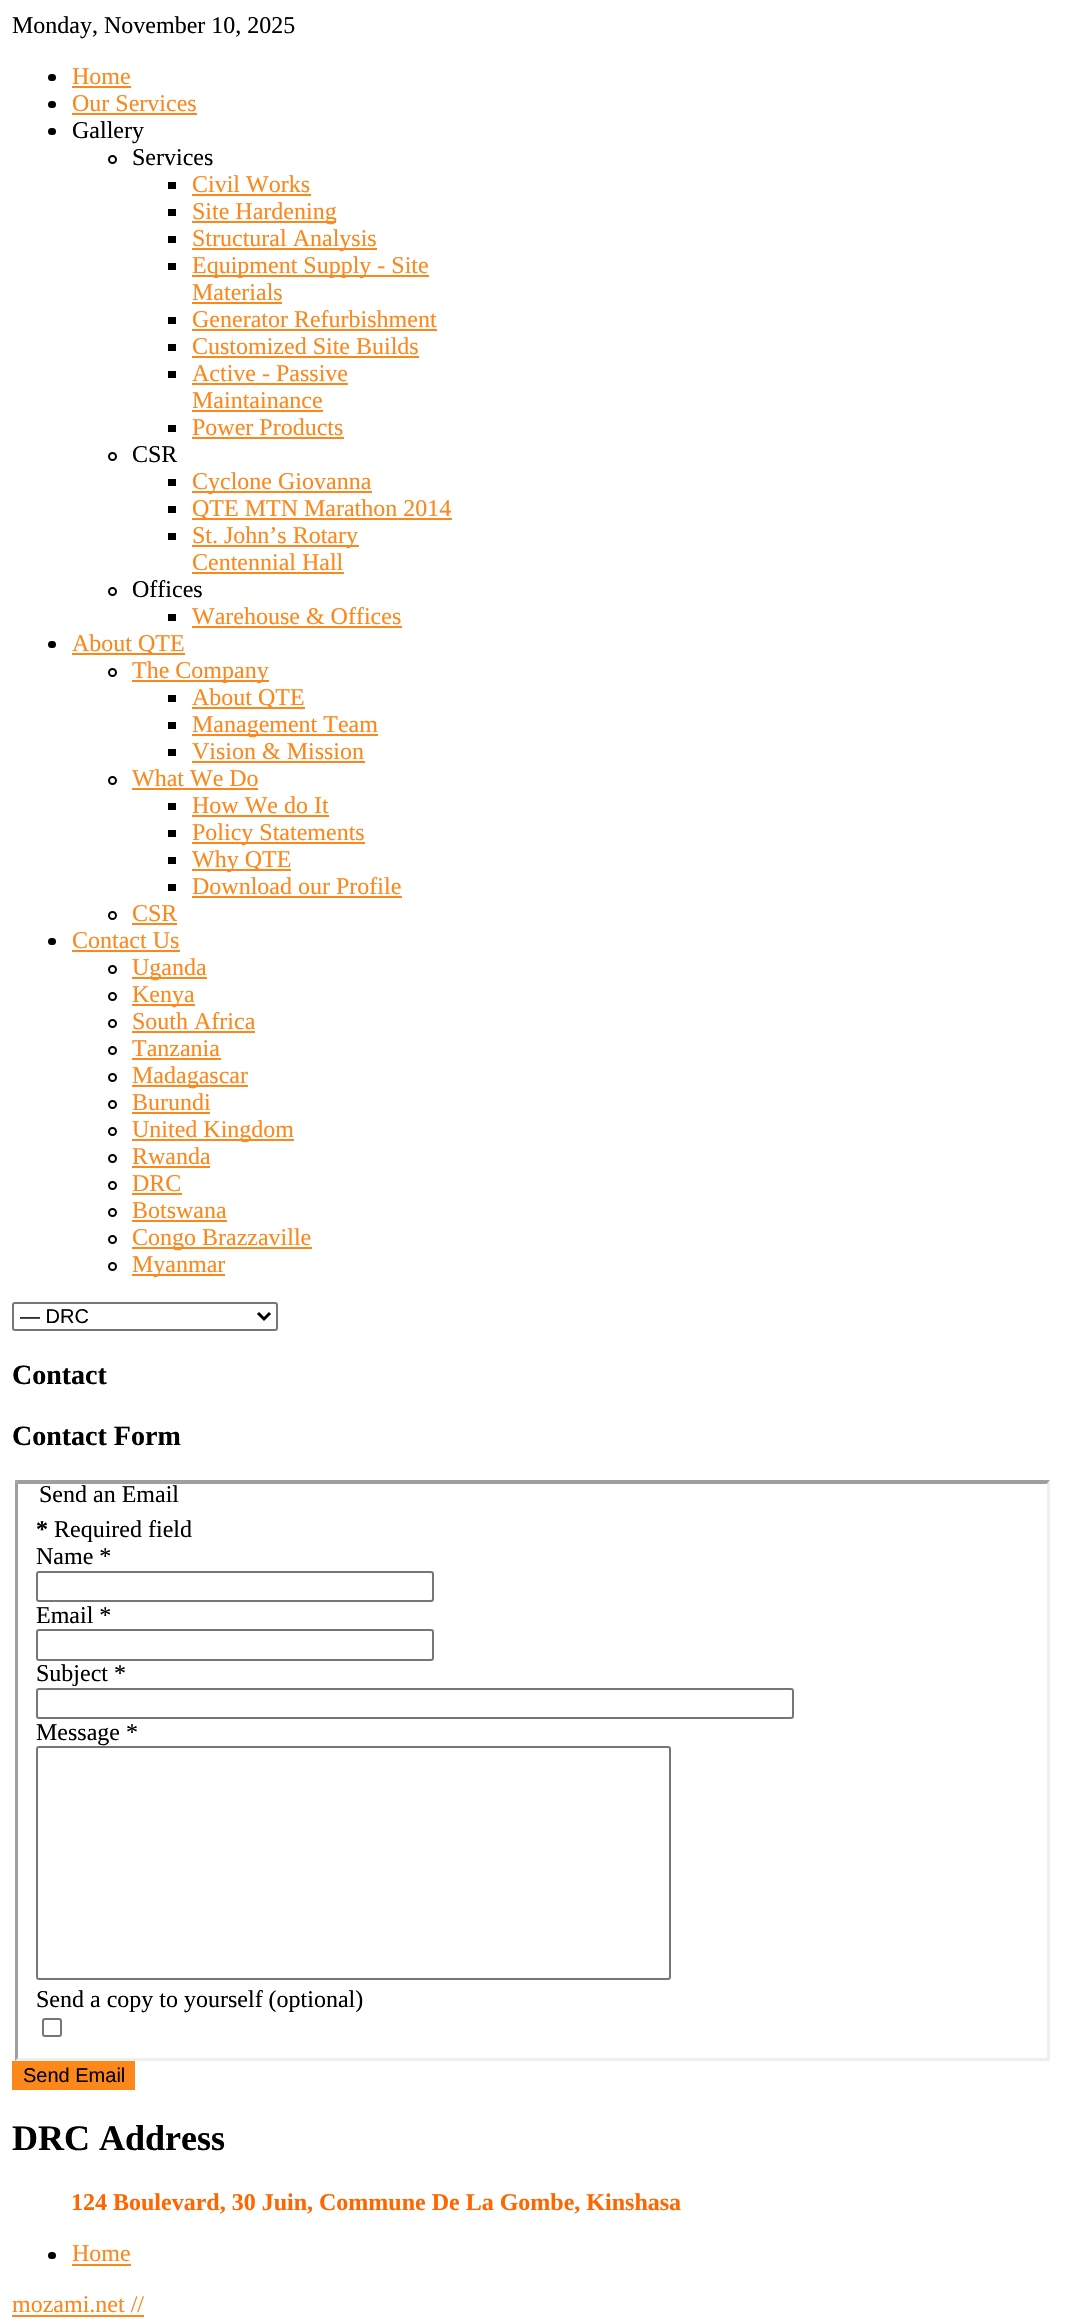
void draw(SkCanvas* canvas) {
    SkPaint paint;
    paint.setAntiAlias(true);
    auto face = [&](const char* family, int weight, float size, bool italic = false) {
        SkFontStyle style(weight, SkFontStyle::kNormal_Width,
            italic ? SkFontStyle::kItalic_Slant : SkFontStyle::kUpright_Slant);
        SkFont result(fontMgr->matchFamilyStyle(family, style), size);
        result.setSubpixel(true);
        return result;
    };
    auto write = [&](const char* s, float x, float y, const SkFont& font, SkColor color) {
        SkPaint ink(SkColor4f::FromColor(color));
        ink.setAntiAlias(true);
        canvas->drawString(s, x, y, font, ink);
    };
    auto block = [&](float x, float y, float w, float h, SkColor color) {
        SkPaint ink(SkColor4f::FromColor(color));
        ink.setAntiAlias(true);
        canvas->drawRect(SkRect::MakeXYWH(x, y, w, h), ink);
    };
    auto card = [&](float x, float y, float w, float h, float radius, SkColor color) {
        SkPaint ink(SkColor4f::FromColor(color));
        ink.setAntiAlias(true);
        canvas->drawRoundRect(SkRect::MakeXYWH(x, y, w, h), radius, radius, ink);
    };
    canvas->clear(SK_ColorWHITE);
    auto kFont1 = face("Liberation Serif", 400, 24);
    write("Monday, November 10, 2025", 12, 33, kFont1, SK_ColorBLACK);
    card(48, 74, 8, 7, 3.5f, SK_ColorBLACK);
    write("Home", 72, 84, kFont1, SkColorSetRGB(252, 135, 27));
    block(72, 86, 59, 2, SkColorSetRGB(252, 135, 27));
    card(48, 101, 8, 7, 3.5f, SK_ColorBLACK);
    write("Our Services", 72, 111, kFont1, SkColorSetRGB(252, 135, 27));
    block(72, 113, 125, 2, SkColorSetRGB(252, 135, 27));
    card(48, 128, 8, 7, 3.5f, SK_ColorBLACK);
    write("Gallery", 72, 138, kFont1, SK_ColorBLACK);
    paint.setStyle(SkPaint::kStroke_Style);
    paint.setStrokeWidth(2);
    paint.setColor(SK_ColorBLACK);
    canvas->drawCircle(112.5f, 159.5f, 3.5f, paint);
    write("Services", 132, 165, kFont1, SK_ColorBLACK);
    block(168, 182, 8, 7, SK_ColorBLACK);
    write("Civil Works", 192, 192, kFont1, SkColorSetRGB(252, 135, 27));
    block(192, 194, 119, 2, SkColorSetRGB(252, 135, 27));
    block(168, 209, 8, 7, SK_ColorBLACK);
    block(192, 221, 144, 2, SkColorSetRGB(252, 135, 27));
    write("Site Hardening", 192, 219, kFont1, SkColorSetRGB(252, 135, 27));
    block(168, 236, 8, 7, SK_ColorBLACK);
    block(192, 248, 185, 2, SkColorSetRGB(252, 135, 27));
    write("Structural Analysis", 192, 246, kFont1, SkColorSetRGB(252, 135, 27));
    block(168, 263, 8, 7, SK_ColorBLACK);
    block(192, 275, 237, 2, SkColorSetRGB(252, 135, 27));
    write("Equipment Supply - Site", 192, 273, kFont1, SkColorSetRGB(252, 135, 27));
    write("Materials", 192, 300, kFont1, SkColorSetRGB(252, 135, 27));
    block(192, 302, 90, 2, SkColorSetRGB(252, 135, 27));
    block(168, 317, 8, 7, SK_ColorBLACK);
    write("Generator Refurbishment", 192, 327, kFont1, SkColorSetRGB(252, 135, 27));
    block(192, 329, 245, 2, SkColorSetRGB(252, 135, 27));
    block(168, 344, 8, 7, SK_ColorBLACK);
    write("Customized Site Builds", 192, 354, kFont1, SkColorSetRGB(252, 135, 27));
    block(192, 356, 227, 2, SkColorSetRGB(252, 135, 27));
    block(168, 371, 8, 7, SK_ColorBLACK);
    write("Active - Passive", 192, 381, kFont1, SkColorSetRGB(252, 135, 27));
    block(192, 383, 156, 2, SkColorSetRGB(252, 135, 27));
    write("Maintainance", 192, 408, kFont1, SkColorSetRGB(252, 135, 27));
    block(192, 410, 131, 2, SkColorSetRGB(252, 135, 27));
    block(168, 425, 8, 7, SK_ColorBLACK);
    write("Power Products", 192, 435, kFont1, SkColorSetRGB(252, 135, 27));
    block(192, 437, 152, 2, SkColorSetRGB(252, 135, 27));
    canvas->drawCircle(112.5f, 456.5f, 3.5f, paint);
    write("CSR", 132, 462, kFont1, SK_ColorBLACK);
    block(168, 479, 8, 7, SK_ColorBLACK);
    block(192, 491, 180, 2, SkColorSetRGB(252, 135, 27));
    write("Cyclone Giovanna", 192, 489, kFont1, SkColorSetRGB(252, 135, 27));
    block(168, 506, 8, 7, SK_ColorBLACK);
    block(192, 518, 260, 2, SkColorSetRGB(252, 135, 27));
    write("QTE MTN Marathon 2014", 192, 516, kFont1, SkColorSetRGB(252, 135, 27));
    block(168, 533, 8, 7, SK_ColorBLACK);
    block(192, 545, 167, 2, SkColorSetRGB(252, 135, 27));
    write("St. John’s Rotary", 192, 543, kFont1, SkColorSetRGB(252, 135, 27));
    write("Centennial Hall", 192, 570, kFont1, SkColorSetRGB(252, 135, 27));
    block(192, 572, 152, 2, SkColorSetRGB(252, 135, 27));
    canvas->drawCircle(112.5f, 591.5f, 3.5f, paint);
    write("Offices", 132, 597, kFont1, SK_ColorBLACK);
    block(168, 614, 8, 7, SK_ColorBLACK);
    write("Warehouse & Offices", 192, 624, kFont1, SkColorSetRGB(252, 135, 27));
    block(192, 626, 210, 2, SkColorSetRGB(252, 135, 27));
    card(48, 641, 8, 7, 3.5f, SK_ColorBLACK);
    block(72, 653, 113, 2, SkColorSetRGB(252, 135, 27));
    write("About QTE", 72, 651, kFont1, SkColorSetRGB(252, 135, 27));
    canvas->drawCircle(112.5f, 672.5f, 3.5f, paint);
    block(132, 680, 137, 2, SkColorSetRGB(252, 135, 27));
    write("The Company", 132, 678, kFont1, SkColorSetRGB(252, 135, 27));
    block(168, 695, 8, 7, SK_ColorBLACK);
    block(192, 707, 113, 2, SkColorSetRGB(252, 135, 27));
    write("About QTE", 192, 705, kFont1, SkColorSetRGB(252, 135, 27));
    block(168, 722, 8, 7, SK_ColorBLACK);
    block(192, 734, 186, 2, SkColorSetRGB(252, 135, 27));
    write("Management Team", 192, 732, kFont1, SkColorSetRGB(252, 135, 27));
    block(168, 749, 8, 7, SK_ColorBLACK);
    write("Vision & Mission", 192, 759, kFont1, SkColorSetRGB(252, 135, 27));
    block(192, 761, 173, 2, SkColorSetRGB(252, 135, 27));
    canvas->drawCircle(112.5f, 780.5f, 3.5f, paint);
    write("What We Do", 132, 786, kFont1, SkColorSetRGB(252, 135, 27));
    block(132, 788, 126, 2, SkColorSetRGB(252, 135, 27));
    block(168, 803, 8, 7, SK_ColorBLACK);
    write("How We do It", 192, 813, kFont1, SkColorSetRGB(252, 135, 27));
    block(192, 815, 137, 2, SkColorSetRGB(252, 135, 27));
    block(168, 830, 8, 7, SK_ColorBLACK);
    block(192, 842, 173, 2, SkColorSetRGB(252, 135, 27));
    write("Policy Statements", 192, 840, kFont1, SkColorSetRGB(252, 135, 27));
    block(168, 857, 8, 7, SK_ColorBLACK);
    block(192, 869, 99, 2, SkColorSetRGB(252, 135, 27));
    write("Why QTE", 192, 867, kFont1, SkColorSetRGB(252, 135, 27));
    block(168, 884, 8, 7, SK_ColorBLACK);
    write("Download our Profile", 192, 894, kFont1, SkColorSetRGB(252, 135, 27));
    block(192, 896, 210, 2, SkColorSetRGB(252, 135, 27));
    canvas->drawCircle(112.5f, 915.5f, 3.5f, paint);
    write("CSR", 132, 921, kFont1, SkColorSetRGB(252, 135, 27));
    block(132, 923, 45, 2, SkColorSetRGB(252, 135, 27));
    card(48, 938, 8, 7, 3.5f, SK_ColorBLACK);
    write("Contact Us", 72, 948, kFont1, SkColorSetRGB(252, 135, 27));
    block(72, 950, 108, 2, SkColorSetRGB(252, 135, 27));
    canvas->drawCircle(112.5f, 969.5f, 3.5f, paint);
    block(132, 977, 75, 2, SkColorSetRGB(252, 135, 27));
    write("Uganda", 132, 975, kFont1, SkColorSetRGB(252, 135, 27));
    canvas->drawCircle(112.5f, 996.5f, 3.5f, paint);
    block(132, 1004, 63, 2, SkColorSetRGB(252, 135, 27));
    write("Kenya", 132, 1002, kFont1, SkColorSetRGB(252, 135, 27));
    canvas->drawCircle(112.5f, 1023.5f, 3.5f, paint);
    write("South Africa", 132, 1029, kFont1, SkColorSetRGB(252, 135, 27));
    block(132, 1031, 123, 2, SkColorSetRGB(252, 135, 27));
    canvas->drawCircle(112.5f, 1050.5f, 3.5f, paint);
    write("Tanzania", 132, 1056, kFont1, SkColorSetRGB(252, 135, 27));
    block(132, 1058, 89, 2, SkColorSetRGB(252, 135, 27));
    canvas->drawCircle(112.5f, 1077.5f, 3.5f, paint);
    block(132, 1085, 116, 2, SkColorSetRGB(252, 135, 27));
    write("Madagascar", 132, 1083, kFont1, SkColorSetRGB(252, 135, 27));
    canvas->drawCircle(112.5f, 1104.5f, 3.5f, paint);
    write("Burundi", 132, 1110, kFont1, SkColorSetRGB(252, 135, 27));
    block(132, 1112, 78, 2, SkColorSetRGB(252, 135, 27));
    canvas->drawCircle(112.5f, 1131.5f, 3.5f, paint);
    block(132, 1139, 162, 2, SkColorSetRGB(252, 135, 27));
    write("United Kingdom", 132, 1137, kFont1, SkColorSetRGB(252, 135, 27));
    canvas->drawCircle(112.5f, 1158.5f, 3.5f, paint);
    write("Rwanda", 132, 1164, kFont1, SkColorSetRGB(252, 135, 27));
    block(132, 1166, 78, 2, SkColorSetRGB(252, 135, 27));
    canvas->drawCircle(112.5f, 1185.5f, 3.5f, paint);
    write("DRC", 132, 1191, kFont1, SkColorSetRGB(252, 135, 27));
    block(132, 1193, 50, 2, SkColorSetRGB(252, 135, 27));
    canvas->drawCircle(112.5f, 1212.5f, 3.5f, paint);
    write("Botswana", 132, 1218, kFont1, SkColorSetRGB(252, 135, 27));
    block(132, 1220, 95, 2, SkColorSetRGB(252, 135, 27));
    canvas->drawCircle(112.5f, 1239.5f, 3.5f, paint);
    block(132, 1247, 180, 2, SkColorSetRGB(252, 135, 27));
    write("Congo Brazzaville", 132, 1245, kFont1, SkColorSetRGB(252, 135, 27));
    canvas->drawCircle(112.5f, 1266.5f, 3.5f, paint);
    block(132, 1274, 93, 2, SkColorSetRGB(252, 135, 27));
    write("Myanmar", 132, 1272, kFont1, SkColorSetRGB(252, 135, 27));
    paint.setColor(SkColorSetRGB(118, 118, 118));
    canvas->drawRoundRect(SkRect::MakeXYWH(13, 1303, 264, 27), 2, 2, paint);
    paint.setStrokeWidth(3);
    paint.setColor(SK_ColorBLACK);
    canvas->drawPath(SkPathBuilder().moveTo(258, 1313).lineTo(264, 1319).lineTo(270, 1313).detach(), paint);
    auto kFont2 = face("Liberation Sans", 400, 20);
    write("— DRC", 20, 1323, kFont2, SK_ColorBLACK);
    auto kFont3 = face("Liberation Serif", 700, 28);
    write("Contact", 12, 1384, kFont3, SK_ColorBLACK);
    write("Contact Form", 12, 1445, kFont3, SK_ColorBLACK);
    paint.setStyle(SkPaint::kFill_Style);
    paint.setColor(SkColorSetRGB(159, 159, 159));
    canvas->drawPath(SkPathBuilder().moveTo(15, 1480).lineTo(1050, 1480).lineTo(1047, 1484).lineTo(18, 1484).close().detach(), paint);
    paint.setColor(SkColorSetRGB(239, 239, 239));
    canvas->drawPath(SkPathBuilder().moveTo(1050, 1480).lineTo(1050, 2061).lineTo(1047, 2058).lineTo(1047, 1484).close().detach(), paint);
    canvas->drawPath(SkPathBuilder().moveTo(1050, 2061).lineTo(15, 2061).lineTo(18, 2058).lineTo(1047, 2058).close().detach(), paint);
    paint.setColor(SkColorSetRGB(159, 159, 159));
    canvas->drawPath(SkPathBuilder().moveTo(15, 2061).lineTo(15, 1480).lineTo(18, 1484).lineTo(18, 2058).close().detach(), paint);
    write("Send an Email", 39, 1502, kFont1, SK_ColorBLACK);
    auto kFont4 = face("Liberation Serif", 700, 24);
    write("*", 36, 1537, kFont4, SK_ColorBLACK);
    write("Required field", 54, 1537, kFont1, SK_ColorBLACK);
    write("Name *", 36, 1564, kFont1, SK_ColorBLACK);
    paint.setStyle(SkPaint::kStroke_Style);
    paint.setStrokeWidth(2);
    paint.setColor(SkColorSetRGB(118, 118, 118));
    canvas->drawRoundRect(SkRect::MakeXYWH(37, 1572, 396, 29), 2, 2, paint);
    write("Email *", 36, 1623, kFont1, SK_ColorBLACK);
    canvas->drawRoundRect(SkRect::MakeXYWH(37, 1630, 396, 30), 2, 2, paint);
    write("Subject *", 36, 1681, kFont1, SK_ColorBLACK);
    canvas->drawRoundRect(SkRect::MakeXYWH(37, 1689, 756, 29), 2, 2, paint);
    write("Message *", 36, 1740, kFont1, SK_ColorBLACK);
    canvas->drawRoundRect(SkRect::MakeXYWH(37, 1747, 633, 232), 2, 2, paint);
    write("Send a copy to yourself (optional)", 36, 2007, kFont1, SK_ColorBLACK);
    canvas->drawRoundRect(SkRect::MakeXYWH(43, 2019, 18, 17), 2, 2, paint);
    block(12, 2061, 123, 29, SkColorSetRGB(252, 135, 27));
    write("Send Email", 23, 2082, kFont2, SK_ColorBLACK);
    auto kFont5 = face("Liberation Serif", 700, 36);
    write("DRC Address", 12, 2150, kFont5, SK_ColorBLACK);
    write("124 Boulevard, 30 Juin, Commune De La Gombe, Kinshasa", 71, 2210, kFont4, SkColorSetRGB(255, 102, 0));
    card(48, 2252, 8, 7, 3.5f, SK_ColorBLACK);
    write("Home", 72, 2261, kFont1, SkColorSetRGB(252, 135, 27));
    block(72, 2264, 59, 2, SkColorSetRGB(252, 135, 27));
    write("mozami.net //", 12, 2312, kFont1, SkColorSetRGB(252, 135, 27));
    block(12, 2315, 132, 2, SkColorSetRGB(252, 135, 27));
}
